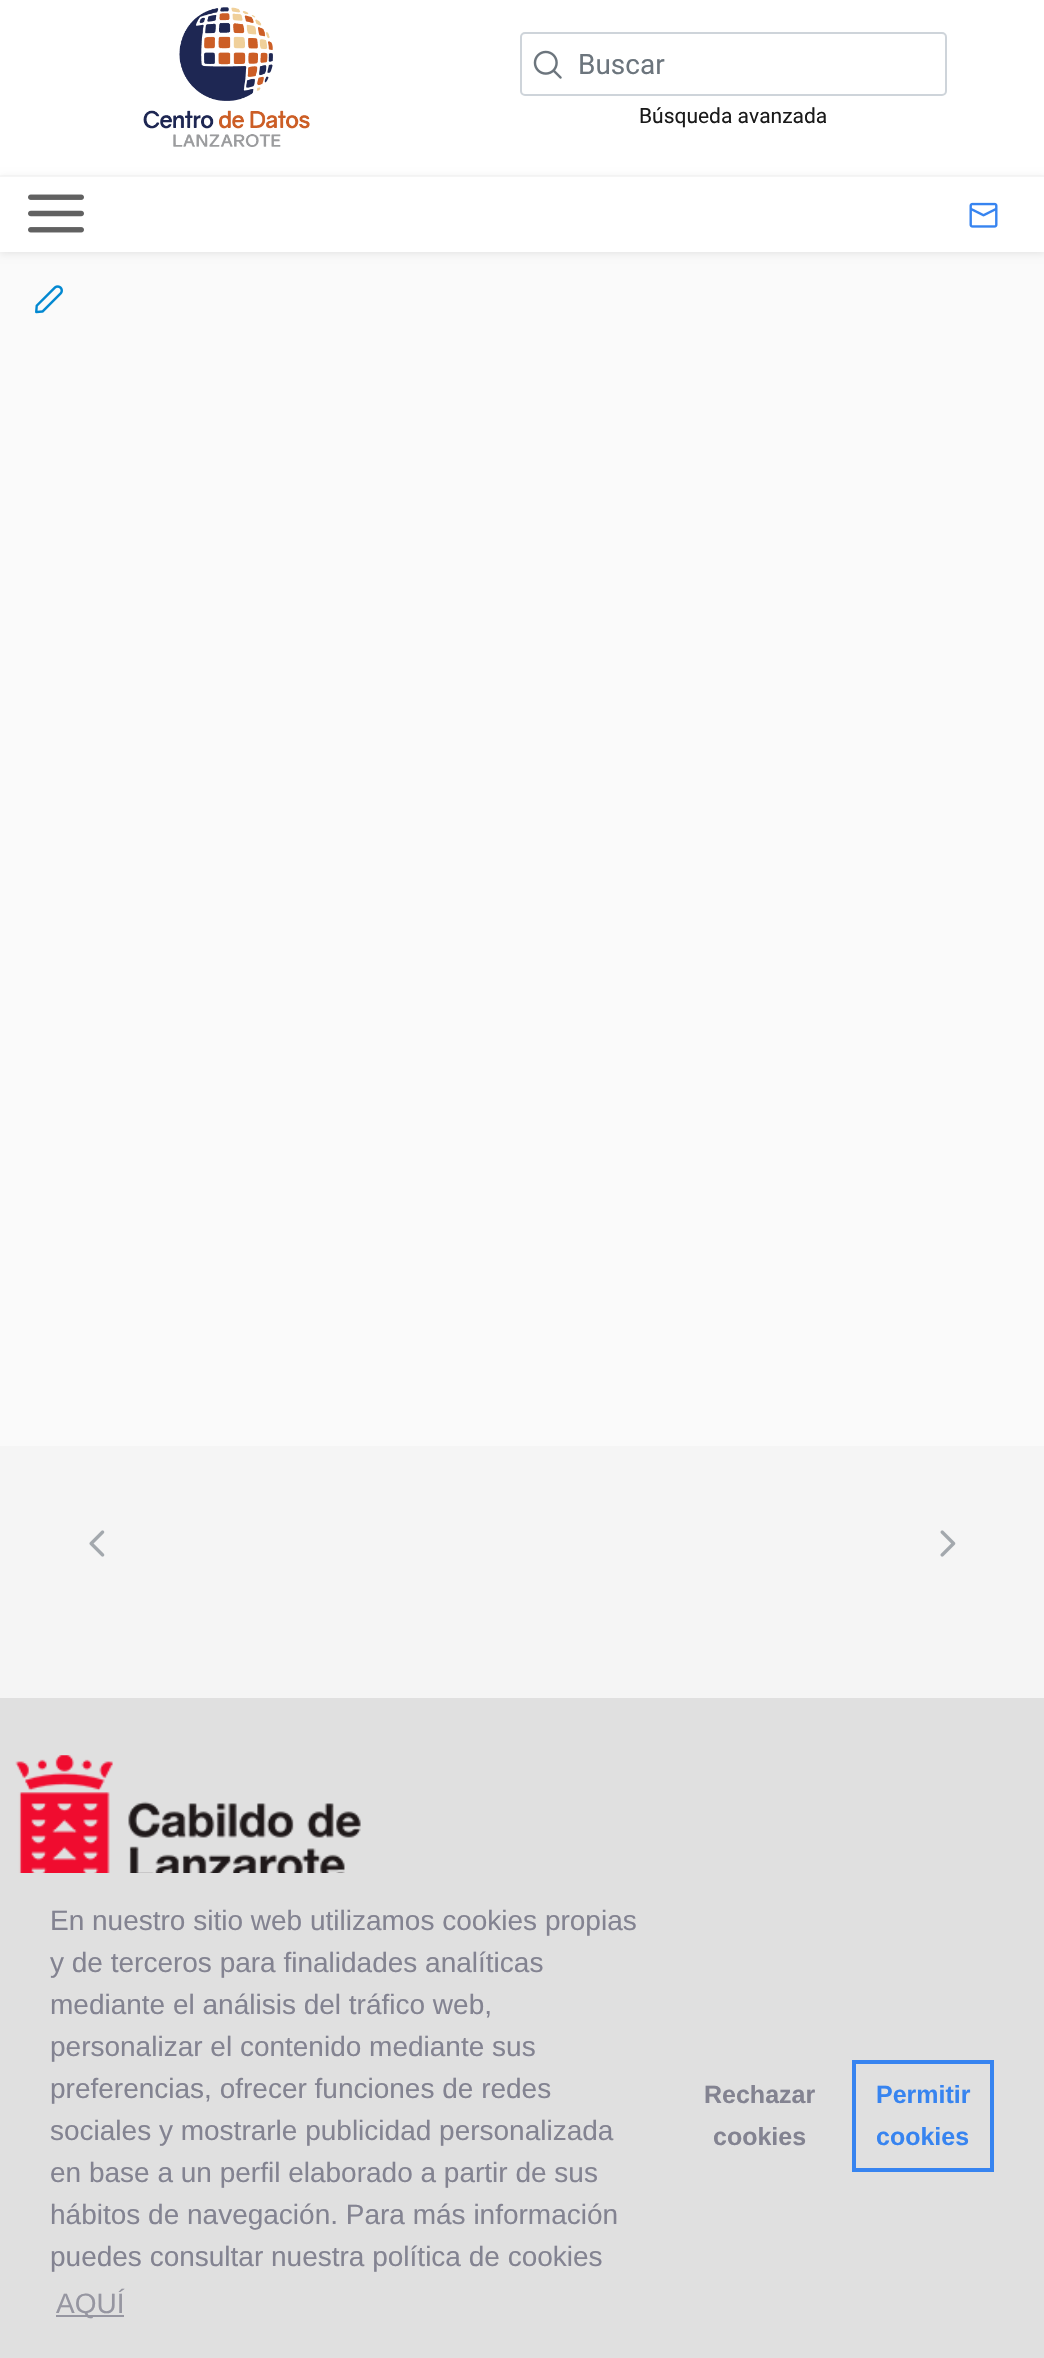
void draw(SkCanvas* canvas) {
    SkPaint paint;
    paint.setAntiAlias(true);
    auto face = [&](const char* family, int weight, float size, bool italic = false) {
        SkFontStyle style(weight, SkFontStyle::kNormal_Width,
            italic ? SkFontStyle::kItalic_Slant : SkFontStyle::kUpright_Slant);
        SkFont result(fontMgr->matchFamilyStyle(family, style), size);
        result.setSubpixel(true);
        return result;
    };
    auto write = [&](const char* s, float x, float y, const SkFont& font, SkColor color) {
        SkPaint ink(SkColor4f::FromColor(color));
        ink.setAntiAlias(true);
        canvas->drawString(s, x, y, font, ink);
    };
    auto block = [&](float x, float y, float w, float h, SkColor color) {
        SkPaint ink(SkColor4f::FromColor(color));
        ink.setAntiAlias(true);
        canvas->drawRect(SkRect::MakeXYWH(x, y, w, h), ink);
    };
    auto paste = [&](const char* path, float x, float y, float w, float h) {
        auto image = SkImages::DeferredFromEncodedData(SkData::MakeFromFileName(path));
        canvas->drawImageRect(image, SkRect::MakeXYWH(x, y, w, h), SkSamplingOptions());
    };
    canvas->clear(SkColorSetRGB(250, 250, 250));
    block(0, 0, 1044, 175, SK_ColorWHITE);
    paste("pic1.png", 143, 7, 167, 140);
    paint.setStyle(SkPaint::kStroke_Style);
    paint.setStrokeWidth(2);
    paint.setColor(SkColorSetRGB(206, 212, 218));
    canvas->drawRoundRect(SkRect::MakeXYWH(521, 33, 425, 62), 4, 4, paint);
    paste("pic2.png", 533, 50, 29, 29);
    auto kFont1 = face("Roboto", 400, 28);
    write("Buscar", 578, 74, kFont1, SkColorSetRGB(108, 117, 125));
    auto kFont2 = face("Roboto", 400, 21);
    write("Búsqueda avanzada", 639, 123, kFont2, SkColorSetRGB(26, 26, 26));
    paint.setStyle(SkPaint::kFill_Style);
    paint.setColor(SkColorSetARGB(20, 0, 0, 0));
    paint.setMaskFilter(SkMaskFilter::MakeBlur(kNormal_SkBlurStyle, 3.5f));
    canvas->drawRect(SkRect::MakeXYWH(0, 177, 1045, 77), paint);
    paint.setMaskFilter(nullptr);
    block(0, 177, 1044, 75, SK_ColorWHITE);
    block(0, 176, 1044, 1, SkColorSetRGB(245, 245, 245));
    paste("pic3.png", 28, 194, 56, 39);
    paste("pic4.png", 969, 202, 29, 26);
    paste("pic5.png", 35, 285, 28, 29);
    block(0, 1446, 1044, 252, SkColorSetRGB(245, 245, 245));
    paste("pic6.png", 89, 1530, 16, 27);
    paste("pic7.png", 940, 1530, 16, 27);
    block(0, 1698, 1044, 660, SkColorSetRGB(224, 224, 224));
    paste("pic8.png", 15, 1755, 346, 118);
    auto kFont3 = face("Liberation Sans", 400, 28);
    write("En nuestro sitio web utilizamos cookies propias", 50, 1930, kFont3, SkColorSetRGB(131, 131, 145));
    write("y de terceros para finalidades analíticas", 50, 1972, kFont3, SkColorSetRGB(131, 131, 145));
    write("mediante el análisis del tráfico web,", 50, 2014, kFont3, SkColorSetRGB(131, 131, 145));
    write("personalizar el contenido mediante sus", 50, 2056, kFont3, SkColorSetRGB(131, 131, 145));
    write("preferencias, ofrecer funciones de redes", 50, 2098, kFont3, SkColorSetRGB(131, 131, 145));
    write("sociales y mostrarle publicidad personalizada", 50, 2140, kFont3, SkColorSetRGB(131, 131, 145));
    write("en base a un perfil elaborado a partir de sus", 50, 2182, kFont3, SkColorSetRGB(131, 131, 145));
    write("hábitos de navegación. Para más información", 50, 2224, kFont3, SkColorSetRGB(131, 131, 145));
    write("puedes consultar nuestra política de cookies", 50, 2266, kFont3, SkColorSetRGB(131, 131, 145));
    block(56, 2315, 68, 2, SkColorSetRGB(150, 150, 161));
    write("AQUÍ", 56, 2313, kFont3, SkColorSetRGB(150, 150, 161));
    auto kFont4 = face("Liberation Sans", 700, 25);
    write("Rechazar", 704, 2103, kFont4, SkColorSetRGB(131, 131, 145));
    write("cookies", 713, 2145, kFont4, SkColorSetRGB(131, 131, 145));
    paint.setStyle(SkPaint::kStroke_Style);
    paint.setStrokeWidth(4);
    paint.setColor(SkColorSetRGB(55, 132, 240));
    canvas->drawRect(SkRect::MakeXYWH(854, 2062, 138, 108), paint);
    write("Permitir", 876, 2103, kFont4, SkColorSetRGB(55, 132, 240));
    write("cookies", 876, 2145, kFont4, SkColorSetRGB(55, 132, 240));
}
